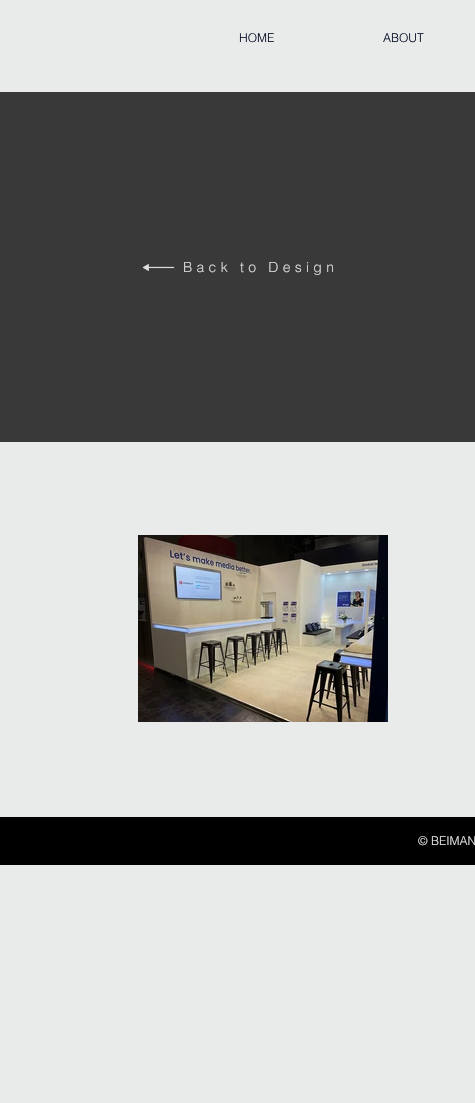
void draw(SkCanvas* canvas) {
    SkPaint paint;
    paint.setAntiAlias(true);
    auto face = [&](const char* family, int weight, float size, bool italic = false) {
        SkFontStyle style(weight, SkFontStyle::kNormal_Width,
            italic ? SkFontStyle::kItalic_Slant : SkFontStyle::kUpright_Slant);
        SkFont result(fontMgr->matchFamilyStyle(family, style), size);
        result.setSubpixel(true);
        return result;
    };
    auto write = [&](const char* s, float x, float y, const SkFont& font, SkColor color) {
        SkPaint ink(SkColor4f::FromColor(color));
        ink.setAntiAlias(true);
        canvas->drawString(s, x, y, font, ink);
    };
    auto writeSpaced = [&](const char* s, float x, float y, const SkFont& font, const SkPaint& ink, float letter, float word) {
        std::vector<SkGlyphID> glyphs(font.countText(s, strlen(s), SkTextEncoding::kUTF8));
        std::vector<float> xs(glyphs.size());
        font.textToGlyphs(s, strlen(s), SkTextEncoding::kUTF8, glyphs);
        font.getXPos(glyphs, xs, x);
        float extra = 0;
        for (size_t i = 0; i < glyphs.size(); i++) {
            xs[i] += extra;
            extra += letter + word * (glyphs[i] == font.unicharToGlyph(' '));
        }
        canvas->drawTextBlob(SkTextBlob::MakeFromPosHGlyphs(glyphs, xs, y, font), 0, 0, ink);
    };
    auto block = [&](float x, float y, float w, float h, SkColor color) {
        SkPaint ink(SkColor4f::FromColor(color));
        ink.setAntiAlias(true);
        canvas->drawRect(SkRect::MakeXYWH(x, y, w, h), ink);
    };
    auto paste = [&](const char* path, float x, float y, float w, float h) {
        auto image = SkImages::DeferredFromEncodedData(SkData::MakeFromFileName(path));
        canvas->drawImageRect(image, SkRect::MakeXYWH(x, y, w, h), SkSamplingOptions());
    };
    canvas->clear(SkColorSetRGB(233, 235, 235));
    auto kFont1 = face("helvetica", 300, 12);
    write("HOME", 239, 42, kFont1, SkColorSetRGB(6, 14, 37));
    write("ABOUT", 383, 42, kFont1, SkColorSetRGB(6, 14, 37));
    block(0, 92, 475, 350, SkColorSetRGB(57, 57, 57));
    paste("pic1.png", 142, 264, 33, 7);
    auto kFont2 = face("helvetica", 300, 14);
    paint.setColor(SkColorSetRGB(221, 221, 221));
    writeSpaced("Back to Design", 183, 272, kFont2, paint, 4.25f, 0);
    paste("pic2.png", 138, 535, 250, 187);
    block(0, 817, 475, 48, SK_ColorBLACK);
    write("© BEIMAN", 418, 845, kFont1, SkColorSetRGB(232, 232, 232));
}
